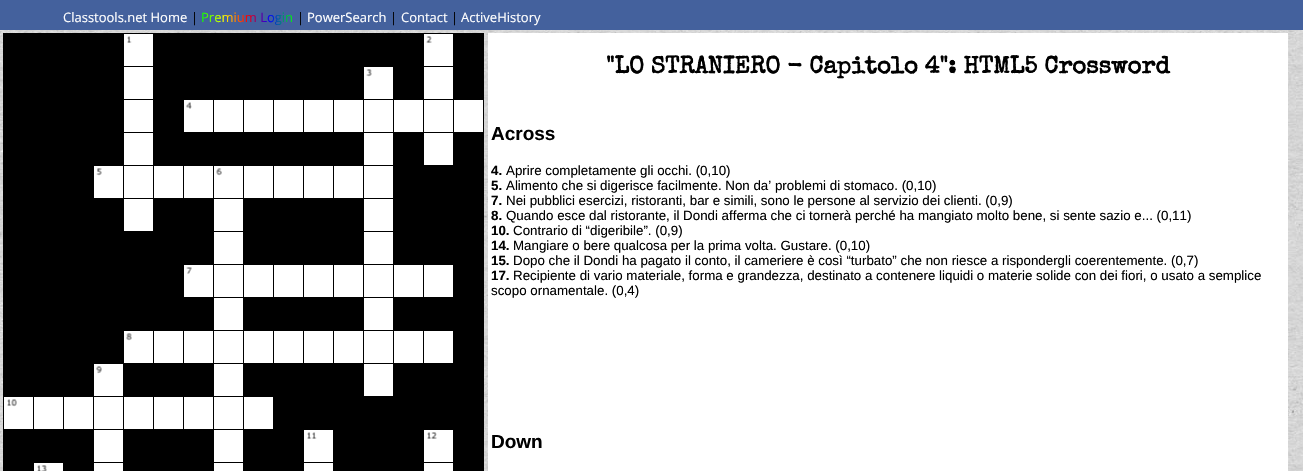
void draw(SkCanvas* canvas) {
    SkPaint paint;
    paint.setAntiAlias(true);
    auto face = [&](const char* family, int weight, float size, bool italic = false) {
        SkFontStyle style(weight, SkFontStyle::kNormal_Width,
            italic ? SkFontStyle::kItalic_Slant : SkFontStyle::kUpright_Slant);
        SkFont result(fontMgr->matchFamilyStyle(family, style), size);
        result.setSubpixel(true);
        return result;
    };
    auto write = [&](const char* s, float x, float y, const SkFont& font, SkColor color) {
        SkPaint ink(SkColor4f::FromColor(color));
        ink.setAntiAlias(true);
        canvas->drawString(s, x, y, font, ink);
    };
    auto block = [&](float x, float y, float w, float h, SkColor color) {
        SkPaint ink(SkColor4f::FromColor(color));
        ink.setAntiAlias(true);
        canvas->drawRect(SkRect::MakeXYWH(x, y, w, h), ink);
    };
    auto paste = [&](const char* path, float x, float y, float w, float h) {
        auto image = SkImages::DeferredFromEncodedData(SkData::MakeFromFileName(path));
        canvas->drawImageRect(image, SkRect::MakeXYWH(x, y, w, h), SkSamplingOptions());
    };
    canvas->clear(SK_ColorWHITE);
    paste("pic1.png", 0, 30, 1303, 441);
    block(0, 0, 1303, 30, SkColorSetRGB(68, 97, 157));
    auto kFont1 = face("Open Sans", 400, 13);
    write("Classtools.net Home", 63, 22, kFont1, SK_ColorWHITE);
    write("|", 191, 22, kFont1, SK_ColorBLACK);
    {
        const SkColor colors[] = {SkColorSetRGB(0, 255, 0), SkColorSetRGB(255, 255, 0), SkColorSetRGB(255, 0, 0), SkColorSetRGB(0, 0, 255), SkColorSetRGB(0, 255, 0)};
        const float stops[] = {0, 0.25f, 0.5f, 0.75f, 1};
        const SkPoint ends[] = {{201, 17}, {293, 17}};
        paint.setShader(SkGradientShader::MakeLinear(ends, colors, stops, 5, SkTileMode::kClamp));
        paint.setAlpha(255);
    }
    canvas->drawString("Premium Login", 201, 22, kFont1, paint);
    write("|", 297, 22, kFont1, SK_ColorBLACK);
    write("PowerSearch", 307, 22, kFont1, SK_ColorWHITE);
    write("|", 390, 22, kFont1, SK_ColorBLACK);
    write("Contact", 401, 22, kFont1, SK_ColorWHITE);
    write("|", 451, 22, kFont1, SK_ColorBLACK);
    write("ActiveHistory", 461, 22, kFont1, SK_ColorWHITE);
    block(4, 34, 30, 32, SK_ColorBLACK);
    block(453, 33, 31, 1, SK_ColorBLACK);
    block(184, 34, 240, 33, SK_ColorBLACK);
    block(453, 66, 31, 1, SK_ColorBLACK);
    block(453, 99, 31, 1, SK_ColorBLACK);
    block(453, 132, 31, 1, SK_ColorBLACK);
    block(393, 165, 91, 1, SK_ColorBLACK);
    block(453, 132, 1, 34, SK_ColorBLACK);
    block(393, 132, 61, 1, SK_ColorBLACK);
    block(453, 99, 1, 34, SK_ColorBLACK);
    block(423, 99, 31, 1, SK_ColorBLACK);
    block(453, 66, 1, 34, SK_ColorBLACK);
    block(423, 66, 31, 1, SK_ColorBLACK);
    block(453, 33, 1, 34, SK_ColorBLACK);
    block(153, 33, 301, 1, SK_ColorBLACK);
    block(34, 34, 90, 33, SK_ColorBLACK);
    block(153, 66, 31, 1, SK_ColorBLACK);
    block(34, 67, 90, 33, SK_ColorBLACK);
    block(153, 99, 31, 1, SK_ColorBLACK);
    block(34, 100, 90, 33, SK_ColorBLACK);
    block(184, 133, 180, 33, SK_ColorBLACK);
    block(393, 198, 31, 1, SK_ColorBLACK);
    block(274, 199, 90, 33, SK_ColorBLACK);
    block(393, 231, 31, 1, SK_ColorBLACK);
    block(274, 232, 90, 33, SK_ColorBLACK);
    block(393, 297, 91, 1, SK_ColorBLACK);
    block(423, 264, 1, 34, SK_ColorBLACK);
    block(393, 264, 31, 1, SK_ColorBLACK);
    block(274, 298, 90, 33, SK_ColorBLACK);
    block(393, 363, 91, 1, SK_ColorBLACK);
    block(423, 330, 1, 34, SK_ColorBLACK);
    block(393, 330, 31, 1, SK_ColorBLACK);
    block(274, 364, 90, 33, SK_ColorBLACK);
    block(363, 396, 61, 1, SK_ColorBLACK);
    block(393, 363, 1, 34, SK_ColorBLACK);
    block(243, 363, 151, 1, SK_ColorBLACK);
    block(393, 330, 1, 34, SK_ColorBLACK);
    block(363, 330, 31, 1, SK_ColorBLACK);
    block(393, 297, 1, 34, SK_ColorBLACK);
    block(243, 297, 151, 1, SK_ColorBLACK);
    block(393, 264, 1, 34, SK_ColorBLACK);
    block(363, 264, 31, 1, SK_ColorBLACK);
    block(393, 231, 1, 34, SK_ColorBLACK);
    block(363, 231, 31, 1, SK_ColorBLACK);
    block(393, 198, 1, 34, SK_ColorBLACK);
    block(243, 198, 151, 1, SK_ColorBLACK);
    block(393, 165, 1, 34, SK_ColorBLACK);
    block(363, 165, 31, 1, SK_ColorBLACK);
    block(393, 132, 1, 34, SK_ColorBLACK);
    block(153, 132, 241, 1, SK_ColorBLACK);
    block(34, 133, 90, 33, SK_ColorBLACK);
    block(184, 199, 30, 33, SK_ColorBLACK);
    block(243, 231, 31, 1, SK_ColorBLACK);
    block(34, 232, 180, 33, SK_ColorBLACK);
    block(273, 264, 1, 34, SK_ColorBLACK);
    block(243, 264, 31, 1, SK_ColorBLACK);
    block(34, 265, 150, 33, SK_ColorBLACK);
    block(34, 298, 180, 33, SK_ColorBLACK);
    block(273, 330, 1, 34, SK_ColorBLACK);
    block(243, 330, 31, 1, SK_ColorBLACK);
    block(34, 331, 90, 33, SK_ColorBLACK);
    block(154, 364, 60, 33, SK_ColorBLACK);
    block(243, 429, 61, 1, SK_ColorBLACK);
    block(273, 396, 1, 34, SK_ColorBLACK);
    block(243, 396, 31, 1, SK_ColorBLACK);
    block(154, 430, 60, 33, SK_ColorBLACK);
    block(243, 462, 31, 1, SK_ColorBLACK);
    block(214, 463, 30, 8, SK_ColorWHITE);
    block(243, 462, 1, 9, SK_ColorBLACK);
    block(213, 462, 31, 1, SK_ColorBLACK);
    block(243, 429, 1, 34, SK_ColorBLACK);
    block(123, 429, 121, 1, SK_ColorBLACK);
    block(243, 396, 1, 34, SK_ColorBLACK);
    block(213, 396, 31, 1, SK_ColorBLACK);
    block(243, 363, 1, 34, SK_ColorBLACK);
    block(123, 363, 121, 1, SK_ColorBLACK);
    block(243, 330, 1, 34, SK_ColorBLACK);
    block(213, 330, 31, 1, SK_ColorBLACK);
    block(243, 297, 1, 34, SK_ColorBLACK);
    block(183, 297, 61, 1, SK_ColorBLACK);
    block(243, 264, 1, 34, SK_ColorBLACK);
    block(213, 264, 31, 1, SK_ColorBLACK);
    block(243, 231, 1, 34, SK_ColorBLACK);
    block(213, 231, 31, 1, SK_ColorBLACK);
    block(243, 198, 1, 34, SK_ColorBLACK);
    block(153, 198, 91, 1, SK_ColorBLACK);
    block(183, 165, 1, 34, SK_ColorBLACK);
    block(153, 165, 31, 1, SK_ColorBLACK);
    block(34, 166, 60, 33, SK_ColorBLACK);
    block(34, 199, 90, 33, SK_ColorBLACK);
    block(123, 231, 61, 1, SK_ColorBLACK);
    block(153, 198, 1, 34, SK_ColorBLACK);
    block(93, 198, 61, 1, SK_ColorBLACK);
    block(153, 165, 1, 34, SK_ColorBLACK);
    block(123, 165, 31, 1, SK_ColorBLACK);
    block(153, 132, 1, 34, SK_ColorBLACK);
    block(123, 132, 31, 1, SK_ColorBLACK);
    block(153, 99, 1, 34, SK_ColorBLACK);
    block(123, 99, 31, 1, SK_ColorBLACK);
    block(153, 66, 1, 34, SK_ColorBLACK);
    block(123, 66, 31, 1, SK_ColorBLACK);
    block(153, 33, 1, 34, SK_ColorBLACK);
    block(3, 33, 151, 1, SK_ColorBLACK);
    block(3, 66, 31, 1, SK_ColorBLACK);
    block(3, 99, 31, 1, SK_ColorBLACK);
    block(3, 132, 31, 1, SK_ColorBLACK);
    block(3, 165, 31, 1, SK_ColorBLACK);
    block(3, 198, 31, 1, SK_ColorBLACK);
    block(3, 231, 31, 1, SK_ColorBLACK);
    block(3, 264, 31, 1, SK_ColorBLACK);
    block(3, 297, 31, 1, SK_ColorBLACK);
    block(3, 330, 31, 1, SK_ColorBLACK);
    block(3, 363, 31, 1, SK_ColorBLACK);
    block(34, 430, 60, 33, SK_ColorBLACK);
    block(123, 462, 31, 1, SK_ColorBLACK);
    block(94, 463, 30, 8, SK_ColorWHITE);
    block(123, 462, 1, 9, SK_ColorBLACK);
    block(93, 462, 31, 1, SK_ColorBLACK);
    block(123, 429, 1, 34, SK_ColorBLACK);
    block(3, 429, 121, 1, SK_ColorBLACK);
    block(33, 396, 1, 34, SK_ColorBLACK);
    block(3, 396, 31, 1, SK_ColorBLACK);
    block(3, 462, 31, 1, SK_ColorBLACK);
    block(3, 462, 1, 9, SK_ColorBLACK);
    block(3, 429, 1, 34, SK_ColorBLACK);
    block(3, 396, 1, 34, SK_ColorBLACK);
    block(3, 363, 1, 34, SK_ColorBLACK);
    block(3, 330, 1, 34, SK_ColorBLACK);
    block(3, 297, 1, 34, SK_ColorBLACK);
    block(3, 264, 1, 34, SK_ColorBLACK);
    block(3, 231, 1, 34, SK_ColorBLACK);
    block(3, 198, 1, 34, SK_ColorBLACK);
    block(3, 165, 1, 34, SK_ColorBLACK);
    block(3, 132, 1, 34, SK_ColorBLACK);
    block(3, 99, 1, 34, SK_ColorBLACK);
    block(3, 66, 1, 34, SK_ColorBLACK);
    block(3, 33, 1, 34, SK_ColorBLACK);
    block(124, 34, 29, 32, SK_ColorWHITE);
    paste("pic2.png", 127, 36, 5, 7);
    block(154, 34, 30, 32, SK_ColorBLACK);
    block(424, 34, 29, 32, SK_ColorWHITE);
    paste("pic3.png", 426, 36, 6, 7);
    block(454, 34, 30, 32, SK_ColorBLACK);
    block(4, 67, 30, 32, SK_ColorBLACK);
    block(124, 67, 29, 32, SK_ColorWHITE);
    block(154, 67, 30, 32, SK_ColorBLACK);
    block(184, 67, 180, 33, SK_ColorBLACK);
    block(364, 67, 29, 32, SK_ColorWHITE);
    paste("pic4.png", 366, 69, 6, 8);
    block(394, 67, 30, 32, SK_ColorBLACK);
    block(423, 99, 1, 34, SK_ColorBLACK);
    block(393, 99, 31, 1, SK_ColorBLACK);
    block(393, 99, 1, 34, SK_ColorBLACK);
    block(363, 99, 31, 1, SK_ColorBLACK);
    block(393, 66, 1, 34, SK_ColorBLACK);
    block(424, 67, 29, 32, SK_ColorWHITE);
    block(454, 67, 30, 32, SK_ColorBLACK);
    block(4, 100, 30, 32, SK_ColorBLACK);
    block(124, 100, 29, 32, SK_ColorWHITE);
    block(154, 100, 30, 32, SK_ColorBLACK);
    block(184, 100, 29, 32, SK_ColorWHITE);
    paste("pic5.png", 186, 102, 6, 7);
    block(214, 100, 29, 32, SK_ColorWHITE);
    block(213, 99, 1, 34, SK_ColorBLACK);
    block(244, 100, 29, 32, SK_ColorWHITE);
    block(243, 99, 1, 34, SK_ColorBLACK);
    block(274, 100, 29, 32, SK_ColorWHITE);
    block(273, 99, 1, 34, SK_ColorBLACK);
    block(304, 100, 29, 32, SK_ColorWHITE);
    block(303, 99, 1, 34, SK_ColorBLACK);
    block(334, 100, 29, 32, SK_ColorWHITE);
    block(333, 99, 1, 34, SK_ColorBLACK);
    block(364, 100, 29, 32, SK_ColorWHITE);
    block(363, 99, 1, 34, SK_ColorBLACK);
    block(394, 100, 29, 32, SK_ColorWHITE);
    block(424, 100, 29, 32, SK_ColorWHITE);
    block(454, 100, 29, 32, SK_ColorWHITE);
    block(483, 99, 1, 34, SK_ColorBLACK);
    block(4, 133, 30, 32, SK_ColorBLACK);
    block(124, 133, 29, 32, SK_ColorWHITE);
    block(154, 133, 30, 32, SK_ColorBLACK);
    block(364, 133, 29, 32, SK_ColorWHITE);
    block(394, 133, 30, 32, SK_ColorBLACK);
    block(424, 133, 29, 32, SK_ColorWHITE);
    block(454, 133, 30, 32, SK_ColorBLACK);
    block(4, 166, 30, 32, SK_ColorBLACK);
    block(124, 166, 29, 32, SK_ColorWHITE);
    block(123, 165, 1, 34, SK_ColorBLACK);
    block(154, 166, 29, 32, SK_ColorWHITE);
    block(184, 166, 29, 32, SK_ColorWHITE);
    block(214, 166, 29, 32, SK_ColorWHITE);
    paste("pic6.png", 216, 168, 6, 8);
    block(213, 165, 1, 34, SK_ColorBLACK);
    block(244, 166, 29, 32, SK_ColorWHITE);
    block(243, 165, 1, 34, SK_ColorBLACK);
    block(274, 166, 29, 32, SK_ColorWHITE);
    block(273, 165, 1, 34, SK_ColorBLACK);
    block(304, 166, 29, 32, SK_ColorWHITE);
    block(303, 165, 1, 34, SK_ColorBLACK);
    block(334, 166, 29, 32, SK_ColorWHITE);
    block(333, 165, 1, 34, SK_ColorBLACK);
    block(364, 166, 29, 32, SK_ColorWHITE);
    block(363, 165, 1, 34, SK_ColorBLACK);
    block(394, 166, 30, 32, SK_ColorBLACK);
    block(94, 166, 29, 32, SK_ColorWHITE);
    paste("pic7.png", 96, 168, 6, 8);
    block(424, 166, 60, 33, SK_ColorBLACK);
    block(4, 199, 30, 32, SK_ColorBLACK);
    block(124, 199, 29, 32, SK_ColorWHITE);
    block(154, 199, 30, 32, SK_ColorBLACK);
    block(214, 199, 29, 32, SK_ColorWHITE);
    block(244, 199, 30, 32, SK_ColorBLACK);
    block(364, 199, 29, 32, SK_ColorWHITE);
    block(394, 199, 30, 32, SK_ColorBLACK);
    block(424, 199, 60, 33, SK_ColorBLACK);
    block(4, 232, 30, 32, SK_ColorBLACK);
    block(214, 232, 29, 32, SK_ColorWHITE);
    block(244, 232, 30, 32, SK_ColorBLACK);
    block(364, 232, 29, 32, SK_ColorWHITE);
    block(394, 232, 30, 32, SK_ColorBLACK);
    block(424, 232, 60, 33, SK_ColorBLACK);
    block(4, 265, 30, 32, SK_ColorBLACK);
    block(184, 265, 29, 32, SK_ColorWHITE);
    paste("pic8.png", 186, 267, 6, 7);
    block(214, 265, 29, 32, SK_ColorWHITE);
    block(213, 264, 1, 34, SK_ColorBLACK);
    block(244, 265, 29, 32, SK_ColorWHITE);
    block(274, 265, 29, 32, SK_ColorWHITE);
    block(304, 265, 29, 32, SK_ColorWHITE);
    block(303, 264, 1, 34, SK_ColorBLACK);
    block(334, 265, 29, 32, SK_ColorWHITE);
    block(333, 264, 1, 34, SK_ColorBLACK);
    block(364, 265, 29, 32, SK_ColorWHITE);
    block(363, 264, 1, 34, SK_ColorBLACK);
    block(394, 265, 29, 32, SK_ColorWHITE);
    block(424, 265, 29, 32, SK_ColorWHITE);
    block(454, 265, 30, 32, SK_ColorBLACK);
    block(453, 264, 1, 34, SK_ColorBLACK);
    block(4, 298, 30, 32, SK_ColorBLACK);
    block(214, 298, 29, 32, SK_ColorWHITE);
    block(244, 298, 30, 32, SK_ColorBLACK);
    block(364, 298, 29, 32, SK_ColorWHITE);
    block(394, 298, 30, 32, SK_ColorBLACK);
    block(424, 298, 60, 33, SK_ColorBLACK);
    block(4, 331, 30, 32, SK_ColorBLACK);
    block(124, 331, 29, 32, SK_ColorWHITE);
    paste("pic9.png", 126, 333, 6, 8);
    block(154, 331, 29, 32, SK_ColorWHITE);
    block(153, 330, 1, 34, SK_ColorBLACK);
    block(184, 331, 29, 32, SK_ColorWHITE);
    block(183, 330, 1, 34, SK_ColorBLACK);
    block(214, 331, 29, 32, SK_ColorWHITE);
    block(213, 330, 1, 34, SK_ColorBLACK);
    block(244, 331, 29, 32, SK_ColorWHITE);
    block(274, 331, 29, 32, SK_ColorWHITE);
    block(304, 331, 29, 32, SK_ColorWHITE);
    block(303, 330, 1, 34, SK_ColorBLACK);
    block(334, 331, 29, 32, SK_ColorWHITE);
    block(333, 330, 1, 34, SK_ColorBLACK);
    block(364, 331, 29, 32, SK_ColorWHITE);
    block(363, 330, 1, 34, SK_ColorBLACK);
    block(394, 331, 29, 32, SK_ColorWHITE);
    block(424, 331, 29, 32, SK_ColorWHITE);
    block(454, 331, 30, 32, SK_ColorBLACK);
    block(453, 330, 1, 34, SK_ColorBLACK);
    block(4, 364, 30, 32, SK_ColorBLACK);
    block(124, 364, 30, 32, SK_ColorBLACK);
    block(34, 364, 60, 33, SK_ColorBLACK);
    block(153, 396, 1, 34, SK_ColorBLACK);
    block(123, 396, 31, 1, SK_ColorBLACK);
    block(123, 396, 1, 34, SK_ColorBLACK);
    block(93, 396, 31, 1, SK_ColorBLACK);
    block(123, 363, 1, 34, SK_ColorBLACK);
    block(214, 364, 29, 32, SK_ColorWHITE);
    block(244, 364, 30, 32, SK_ColorBLACK);
    block(364, 364, 29, 32, SK_ColorWHITE);
    block(394, 364, 30, 32, SK_ColorBLACK);
    block(94, 364, 29, 32, SK_ColorWHITE);
    paste("pic10.png", 96, 366, 6, 8);
    block(424, 364, 60, 33, SK_ColorBLACK);
    block(4, 397, 29, 32, SK_ColorWHITE);
    paste("pic11.png", 7, 399, 10, 8);
    block(34, 397, 29, 32, SK_ColorWHITE);
    block(64, 397, 29, 32, SK_ColorWHITE);
    block(63, 396, 1, 34, SK_ColorBLACK);
    block(94, 397, 29, 32, SK_ColorWHITE);
    block(93, 396, 1, 34, SK_ColorBLACK);
    block(124, 397, 29, 32, SK_ColorWHITE);
    block(154, 397, 29, 32, SK_ColorWHITE);
    block(184, 397, 29, 32, SK_ColorWHITE);
    block(183, 396, 1, 34, SK_ColorBLACK);
    block(214, 397, 29, 32, SK_ColorWHITE);
    block(213, 396, 1, 34, SK_ColorBLACK);
    block(244, 397, 29, 32, SK_ColorWHITE);
    block(274, 397, 30, 32, SK_ColorBLACK);
    block(304, 397, 180, 33, SK_ColorBLACK);
    block(4, 430, 30, 32, SK_ColorBLACK);
    block(94, 430, 29, 32, SK_ColorWHITE);
    block(124, 430, 30, 32, SK_ColorBLACK);
    block(214, 430, 29, 32, SK_ColorWHITE);
    block(244, 430, 30, 32, SK_ColorBLACK);
    block(274, 430, 30, 33, SK_ColorBLACK);
    block(304, 430, 29, 32, SK_ColorWHITE);
    paste("pic12.png", 307, 432, 10, 7);
    block(334, 430, 30, 32, SK_ColorBLACK);
    block(333, 462, 31, 1, SK_ColorBLACK);
    block(304, 463, 30, 8, SK_ColorWHITE);
    block(333, 462, 1, 9, SK_ColorBLACK);
    block(303, 462, 31, 1, SK_ColorBLACK);
    block(333, 429, 1, 34, SK_ColorBLACK);
    block(364, 430, 60, 33, SK_ColorBLACK);
    block(424, 430, 29, 32, SK_ColorWHITE);
    paste("pic13.png", 427, 432, 10, 7);
    block(454, 430, 30, 32, SK_ColorBLACK);
    block(453, 462, 31, 1, SK_ColorBLACK);
    block(424, 463, 30, 8, SK_ColorWHITE);
    block(453, 462, 1, 9, SK_ColorBLACK);
    block(423, 462, 31, 1, SK_ColorBLACK);
    block(453, 429, 1, 34, SK_ColorBLACK);
    block(4, 463, 30, 8, SK_ColorBLACK);
    block(34, 463, 30, 8, SK_ColorWHITE);
    paste("pic14.png", 37, 465, 10, 6);
    block(64, 463, 30, 8, SK_ColorBLACK);
    block(63, 462, 1, 9, SK_ColorBLACK);
    block(124, 463, 90, 8, SK_ColorBLACK);
    block(244, 463, 60, 8, SK_ColorBLACK);
    block(334, 463, 90, 8, SK_ColorBLACK);
    block(454, 463, 30, 8, SK_ColorBLACK);
    block(488, 33, 800, 438, SK_ColorWHITE);
    auto kFont2 = face("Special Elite", 700, 24);
    write("\"LO STRANIERO - Capitolo 4\": HTML5 Crossword", 606, 73, kFont2, SK_ColorBLACK);
    auto kFont3 = face("Liberation Sans", 700, 19);
    write("Across", 491, 140, kFont3, SK_ColorBLACK);
    auto kFont4 = face("Liberation Sans", 700, 13.33f);
    write("4.", 491, 175, kFont4, SK_ColorBLACK);
    auto kFont5 = face("Liberation Sans", 400, 13.33f);
    write("Aprire completamente gli occhi. (0,10)", 506, 175, kFont5, SK_ColorBLACK);
    write("5.", 491, 190, kFont4, SK_ColorBLACK);
    write("Alimento che si digerisce facilmente. Non da’ problemi di stomaco. (0,10)", 506, 190, kFont5, SK_ColorBLACK);
    write("7.", 491, 205, kFont4, SK_ColorBLACK);
    write("Nei pubblici esercizi, ristoranti, bar e simili, sono le persone al servizio dei clienti. (0,9)", 506, 205, kFont5, SK_ColorBLACK);
    write("8.", 491, 220, kFont4, SK_ColorBLACK);
    write("Quando esce dal ristorante, il Dondi afferma che ci tornerà perché ha mangiato molto bene, si sente sazio e... (0,11)", 506, 220, kFont5, SK_ColorBLACK);
    write("10.", 491, 235, kFont4, SK_ColorBLACK);
    write("Contrario di “digeribile”. (0,9)", 513, 235, kFont5, SK_ColorBLACK);
    write("14.", 491, 250, kFont4, SK_ColorBLACK);
    write("Mangiare o bere qualcosa per la prima volta. Gustare. (0,10)", 513, 250, kFont5, SK_ColorBLACK);
    write("15.", 491, 265, kFont4, SK_ColorBLACK);
    write("Dopo che il Dondi ha pagato il conto, il cameriere è così “turbato” che non riesce a rispondergli coerentemente. (0,7)", 513, 265, kFont5, SK_ColorBLACK);
    write("17.", 491, 280, kFont4, SK_ColorBLACK);
    write("Recipiente di vario materiale, forma e grandezza, destinato a contenere liquidi o materie solide con dei fiori, o usato a semplice", 513, 280, kFont5, SK_ColorBLACK);
    write("scopo ornamentale. (0,4)", 491, 295, kFont5, SK_ColorBLACK);
    write("Down", 491, 448, kFont3, SK_ColorBLACK);
}
